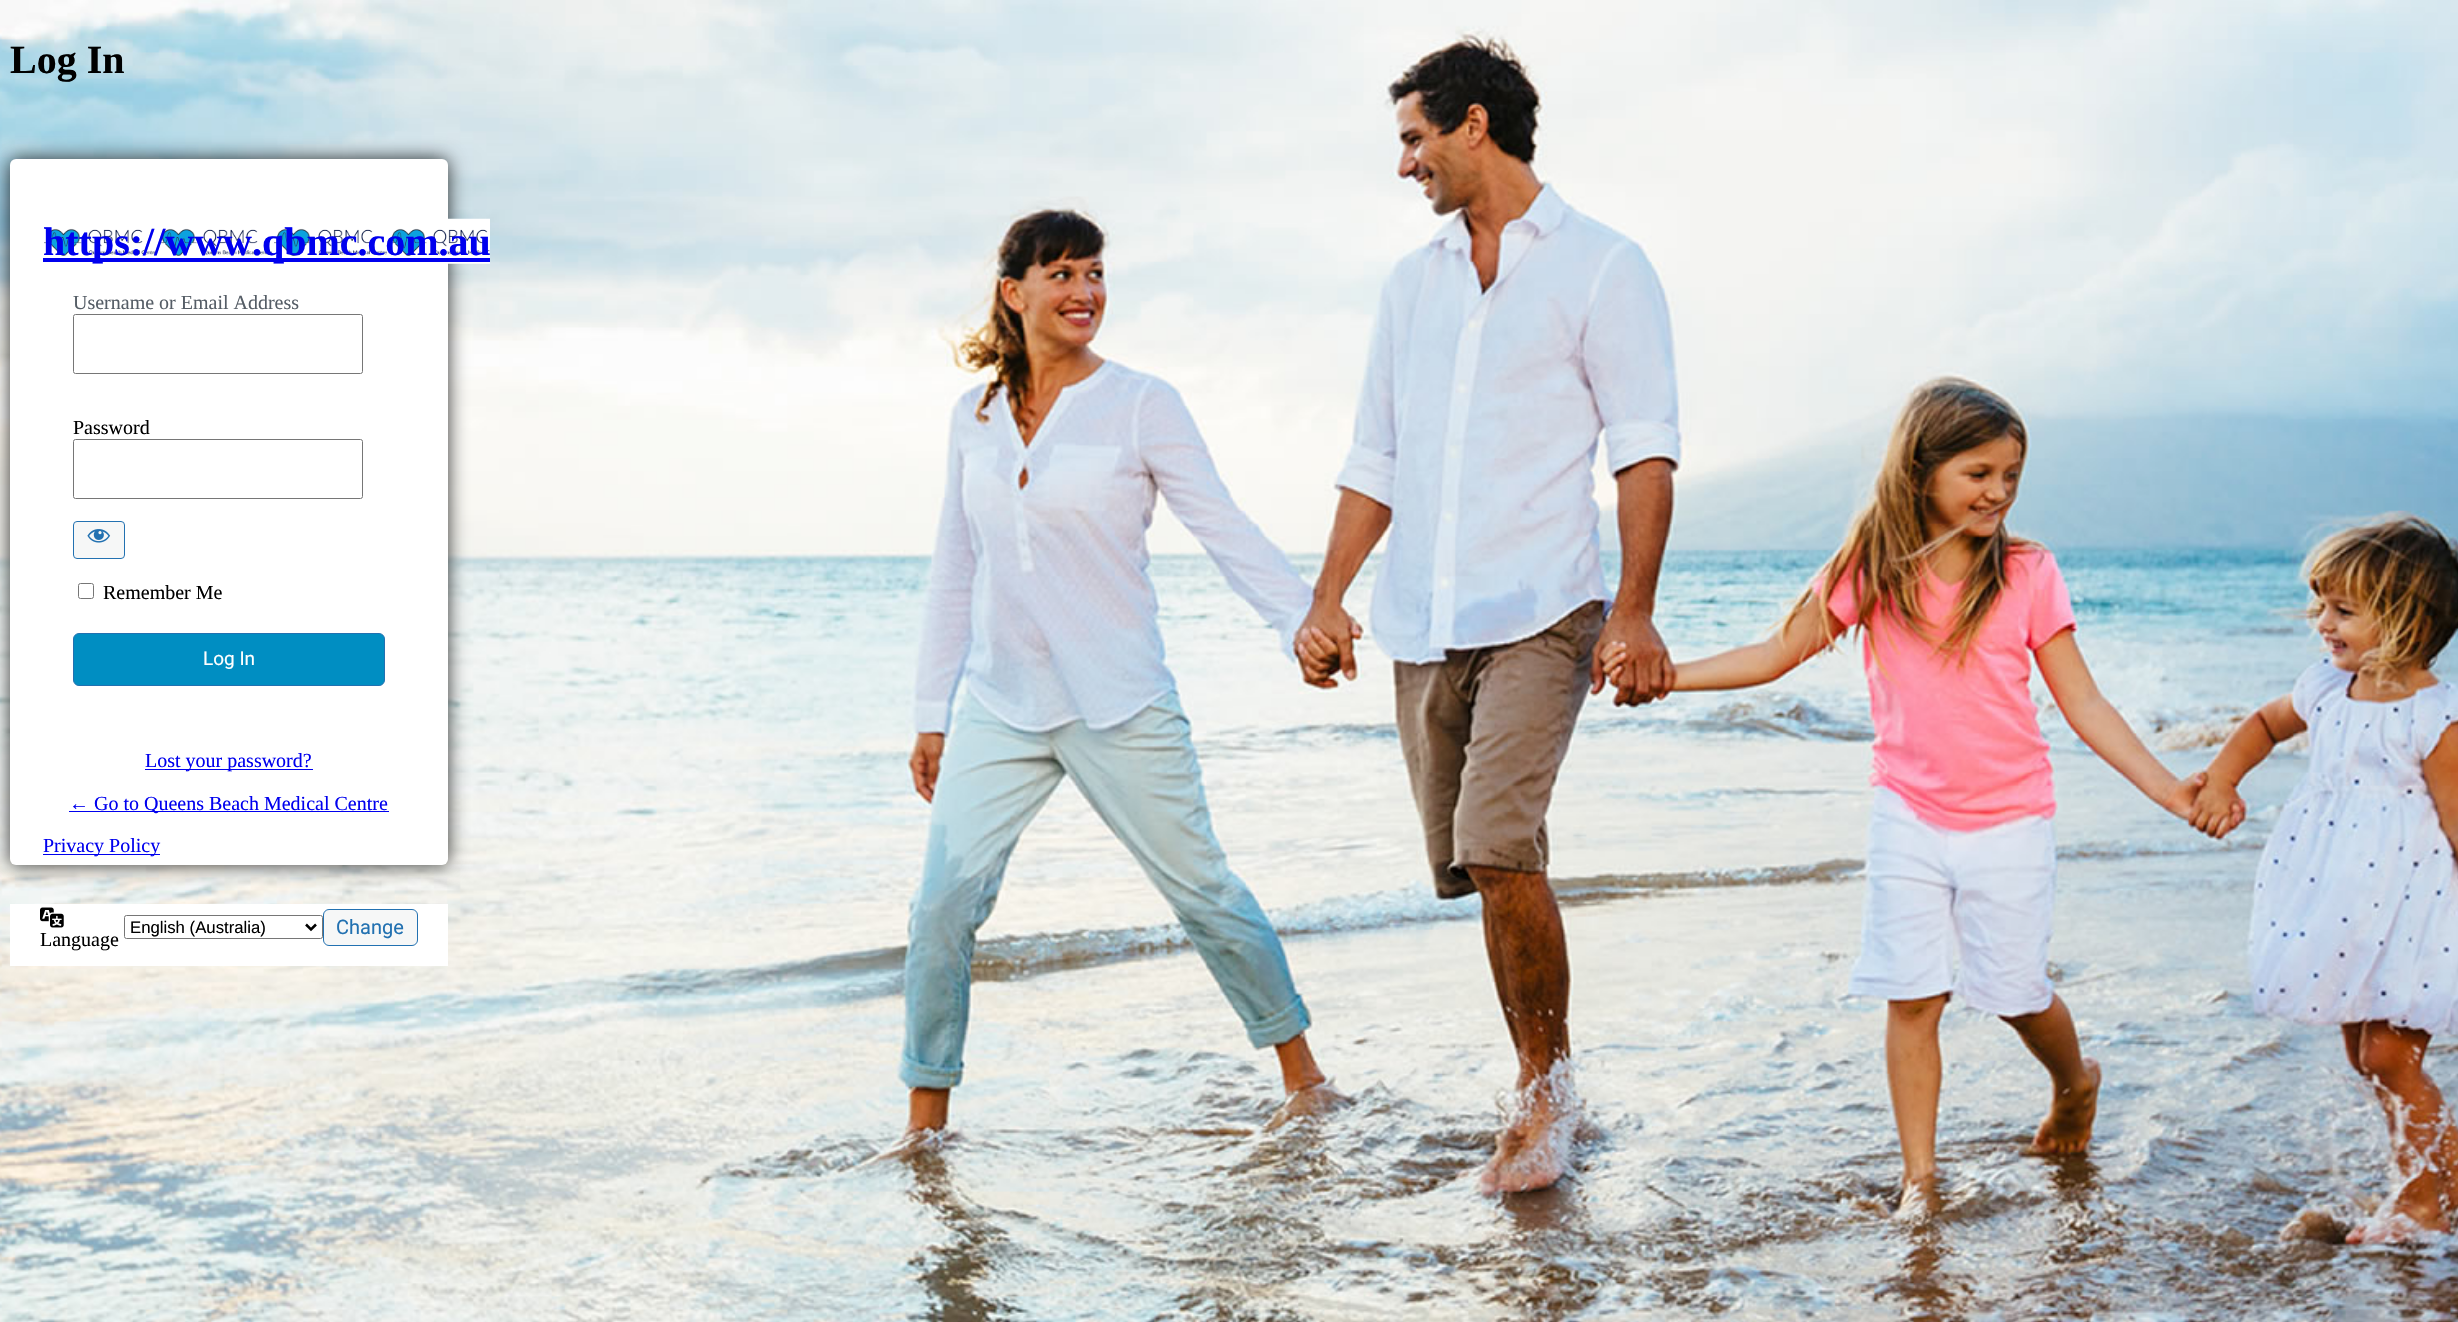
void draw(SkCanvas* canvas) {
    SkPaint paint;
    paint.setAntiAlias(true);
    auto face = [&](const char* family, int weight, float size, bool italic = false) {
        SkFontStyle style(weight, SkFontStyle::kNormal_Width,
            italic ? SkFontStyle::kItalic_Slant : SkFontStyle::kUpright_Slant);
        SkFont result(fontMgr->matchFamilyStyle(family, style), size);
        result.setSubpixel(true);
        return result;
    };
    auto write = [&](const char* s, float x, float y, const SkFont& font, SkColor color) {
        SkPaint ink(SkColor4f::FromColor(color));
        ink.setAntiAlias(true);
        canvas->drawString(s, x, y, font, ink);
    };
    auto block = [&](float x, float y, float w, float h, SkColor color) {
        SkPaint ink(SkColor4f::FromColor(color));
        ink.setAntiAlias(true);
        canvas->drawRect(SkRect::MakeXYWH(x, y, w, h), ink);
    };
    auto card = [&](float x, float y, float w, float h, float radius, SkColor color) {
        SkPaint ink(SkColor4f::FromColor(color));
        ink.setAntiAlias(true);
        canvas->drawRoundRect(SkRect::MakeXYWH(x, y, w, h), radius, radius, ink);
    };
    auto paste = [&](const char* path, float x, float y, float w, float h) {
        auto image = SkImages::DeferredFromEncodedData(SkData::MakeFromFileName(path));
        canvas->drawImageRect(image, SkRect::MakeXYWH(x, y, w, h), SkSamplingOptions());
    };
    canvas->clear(SK_ColorWHITE);
    paste("pic1.png", 0, 0, 2458, 1322);
    auto kFont1 = face("Liberation Serif", 700, 40);
    write("Log In", 10, 73, kFont1, SK_ColorBLACK);
    paint.setColor(SkColorSetARGB(204, 0, 0, 0));
    paint.setMaskFilter(SkMaskFilter::MakeBlur(kNormal_SkBlurStyle, 9.5f));
    canvas->drawRoundRect(SkRect::MakeXYWH(10, 159, 438, 706), 6, 6, paint);
    paint.setMaskFilter(nullptr);
    card(10, 159, 438, 706, 6, SK_ColorWHITE);
    paste("pic2.png", 44, 218, 446, 46);
    block(43, 258, 447, 4, SkColorSetRGB(0, 0, 238));
    write("https://www.qbmc.com.au", 43, 255, kFont1, SkColorSetRGB(0, 0, 238));
    auto kFont2 = face("Liberation Serif", 400, 20);
    write("Username or Email Address", 73, 309, kFont2, SkColorSetRGB(85, 93, 102));
    paint.setStyle(SkPaint::kStroke_Style);
    paint.setStrokeWidth(1);
    paint.setColor(SkColorSetRGB(118, 118, 118));
    canvas->drawRoundRect(SkRect::MakeXYWH(73.5f, 314.5f, 289, 59), 2, 2, paint);
    write("Password", 73, 434, kFont2, SK_ColorBLACK);
    canvas->drawRoundRect(SkRect::MakeXYWH(73.5f, 439.5f, 289, 59), 2, 2, paint);
    paint.setStyle(SkPaint::kFill_Style);
    paint.setColor(SkColorSetRGB(246, 247, 247));
    canvas->drawRoundRect(SkRect::MakeXYWH(73.5f, 521.5f, 51, 37), 3.5f, 3.5f, paint);
    paint.setStyle(SkPaint::kStroke_Style);
    paint.setColor(SkColorSetRGB(34, 113, 177));
    canvas->drawRoundRect(SkRect::MakeXYWH(73.5f, 521.5f, 51, 37), 3.5f, 3.5f, paint);
    paste("pic3.png", 87, 529, 24, 14);
    paint.setColor(SkColorSetRGB(118, 118, 118));
    canvas->drawRoundRect(SkRect::MakeXYWH(78.5f, 583.5f, 15, 15), 2, 2, paint);
    write("Remember Me", 103, 599, kFont2, SK_ColorBLACK);
    paint.setStyle(SkPaint::kFill_Style);
    paint.setColor(SkColorSetRGB(0, 142, 194));
    canvas->drawRoundRect(SkRect::MakeXYWH(73.5f, 633.5f, 311, 52), 5.5f, 5.5f, paint);
    paint.setStyle(SkPaint::kStroke_Style);
    paint.setColor(SkColorSetRGB(34, 113, 177));
    canvas->drawRoundRect(SkRect::MakeXYWH(73.5f, 633.5f, 311, 52), 5.5f, 5.5f, paint);
    auto kFont3 = face("Roboto", 400, 19);
    write("Log In", 203, 665, kFont3, SK_ColorWHITE);
    block(145, 769, 168, 1, SkColorSetRGB(0, 0, 238));
    write("Lost your password?", 145, 767, kFont2, SkColorSetRGB(0, 0, 238));
    block(69, 811, 320, 1, SkColorSetRGB(0, 0, 238));
    write("← Go to Queens Beach Medical Centre", 69, 810, kFont2, SkColorSetRGB(0, 0, 238));
    block(43, 854, 117, 1, SkColorSetRGB(0, 0, 238));
    write("Privacy Policy", 43, 852, kFont2, SkColorSetRGB(0, 0, 238));
    block(10, 904, 438, 62, SK_ColorWHITE);
    paint.setColor(SkColorSetRGB(118, 118, 118));
    canvas->drawRoundRect(SkRect::MakeXYWH(124.5f, 915.5f, 198, 23), 2, 2, paint);
    paint.setStrokeWidth(2.5f);
    paint.setColor(SK_ColorBLACK);
    canvas->drawPath(SkPathBuilder().moveTo(306, 924.5f).lineTo(311, 929.5f).lineTo(316, 924.5f).detach(), paint);
    auto kFont4 = face("Liberation Sans", 400, 16.75f);
    write("English (Australia)", 130, 933, kFont4, SK_ColorBLACK);
    paint.setStyle(SkPaint::kFill_Style);
    paint.setColor(SkColorSetRGB(246, 247, 247));
    canvas->drawRoundRect(SkRect::MakeXYWH(323.5f, 909.5f, 94, 36), 5.5f, 5.5f, paint);
    paint.setStyle(SkPaint::kStroke_Style);
    paint.setStrokeWidth(1);
    paint.setColor(SkColorSetRGB(34, 113, 177));
    canvas->drawRoundRect(SkRect::MakeXYWH(323.5f, 909.5f, 94, 36), 5.5f, 5.5f, paint);
    auto kFont5 = face("Roboto", 400, 20);
    write("Change", 336, 934, kFont5, SkColorSetRGB(34, 113, 177));
    paste("pic4.png", 40, 907, 24, 21);
    write("Language", 40, 946, kFont2, SK_ColorBLACK);
}
